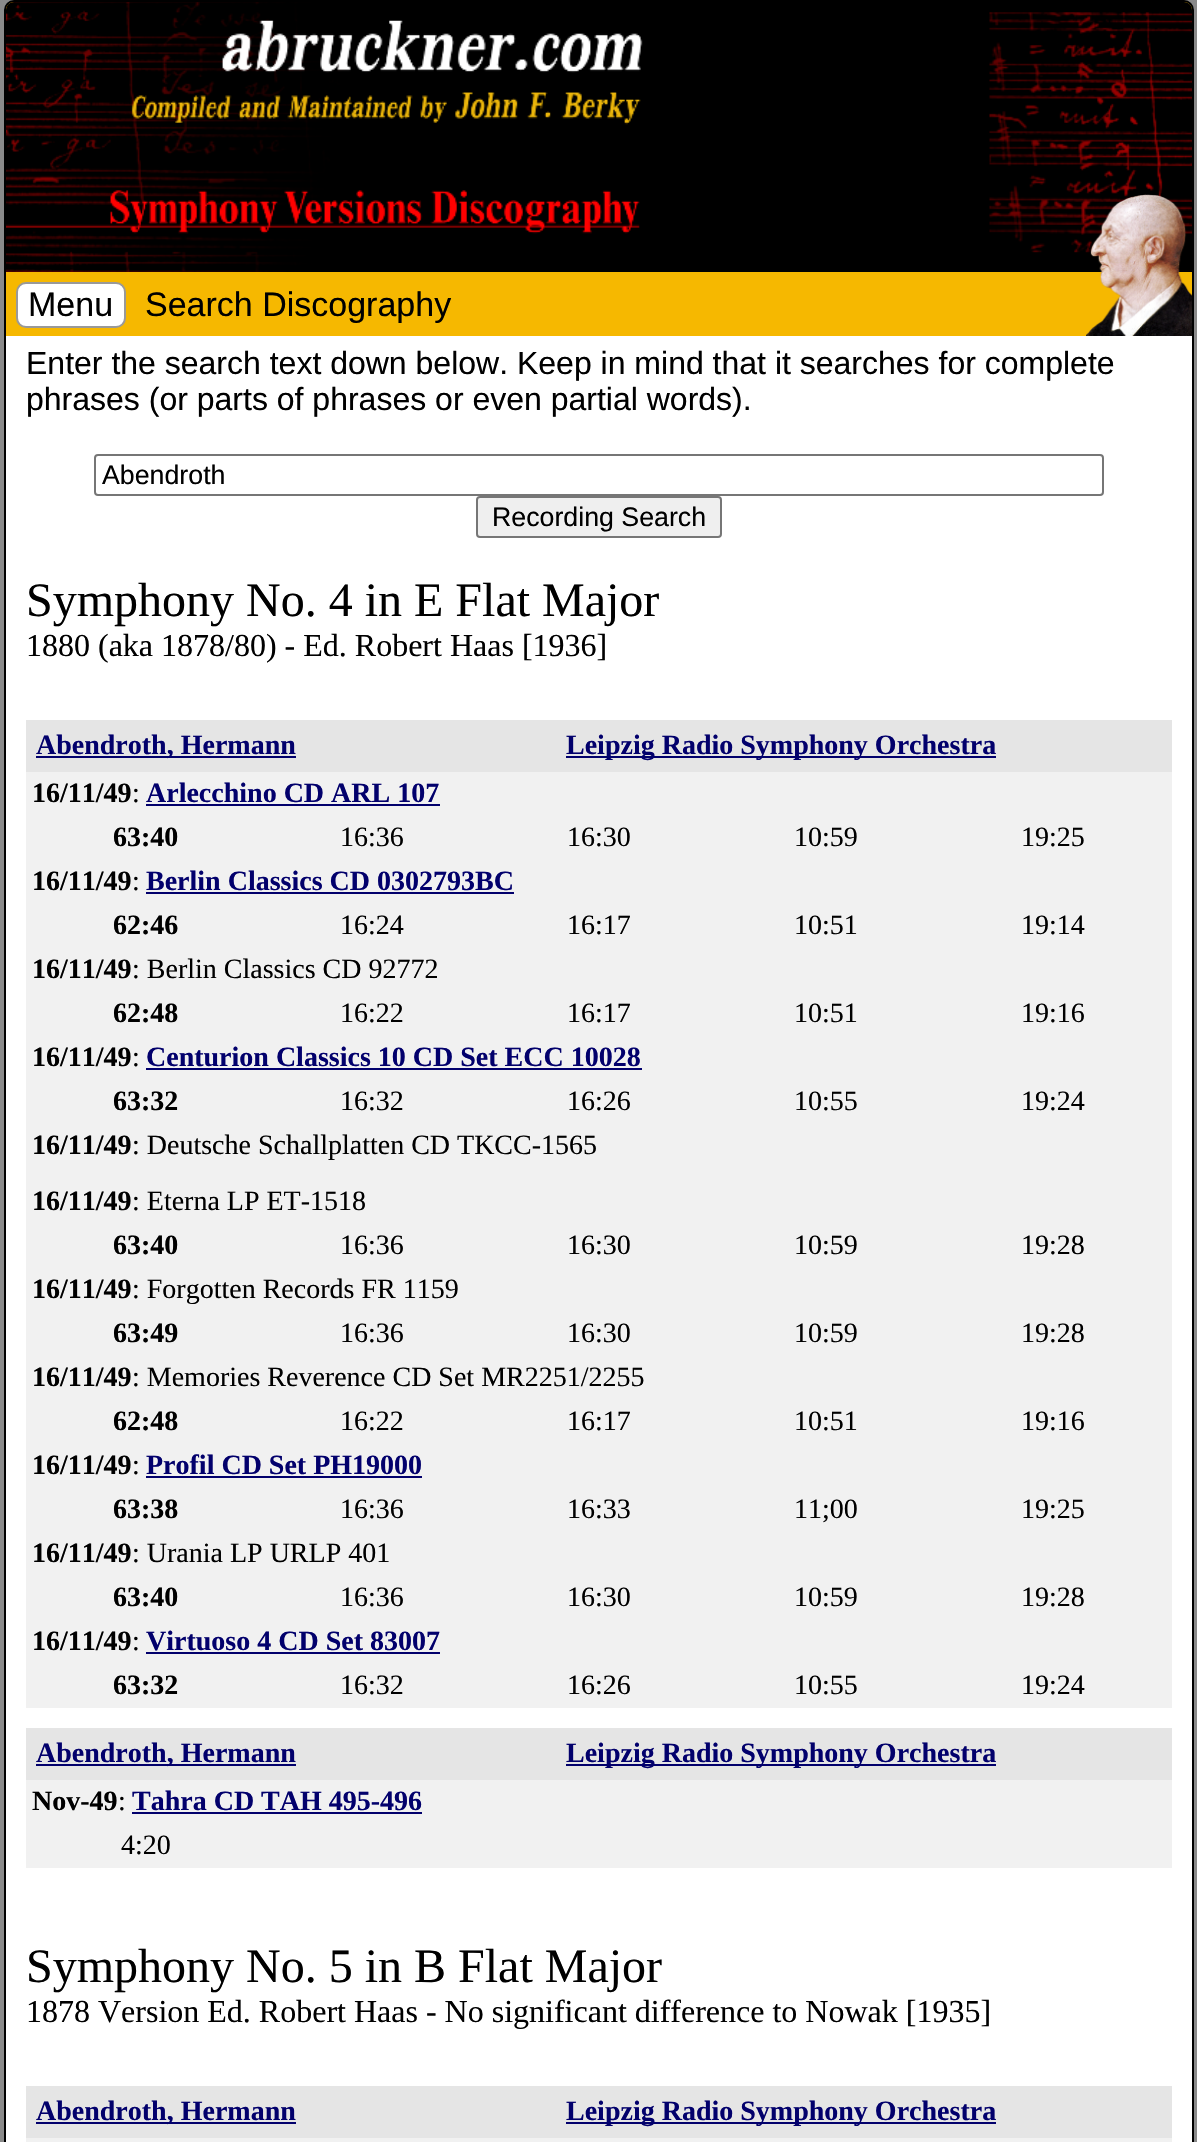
void draw(SkCanvas* canvas) {
    SkPaint paint;
    paint.setAntiAlias(true);
    auto face = [&](const char* family, int weight, float size, bool italic = false) {
        SkFontStyle style(weight, SkFontStyle::kNormal_Width,
            italic ? SkFontStyle::kItalic_Slant : SkFontStyle::kUpright_Slant);
        SkFont result(fontMgr->matchFamilyStyle(family, style), size);
        result.setSubpixel(true);
        return result;
    };
    auto write = [&](const char* s, float x, float y, const SkFont& font, SkColor color) {
        SkPaint ink(SkColor4f::FromColor(color));
        ink.setAntiAlias(true);
        canvas->drawString(s, x, y, font, ink);
    };
    auto block = [&](float x, float y, float w, float h, SkColor color) {
        SkPaint ink(SkColor4f::FromColor(color));
        ink.setAntiAlias(true);
        canvas->drawRect(SkRect::MakeXYWH(x, y, w, h), ink);
    };
    auto paste = [&](const char* path, float x, float y, float w, float h) {
        auto image = SkImages::DeferredFromEncodedData(SkData::MakeFromFileName(path));
        canvas->drawImageRect(image, SkRect::MakeXYWH(x, y, w, h), SkSamplingOptions());
    };
    canvas->clear(SkColorSetRGB(138, 138, 138));
    paint.setColor(SkColorSetRGB(246, 184, 0));
    canvas->drawRoundRect(SkRect::MakeXYWH(5, 1, 1188, 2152), 9, 9, paint);
    paint.setStyle(SkPaint::kStroke_Style);
    paint.setStrokeWidth(2);
    paint.setColor(SK_ColorBLACK);
    canvas->drawRoundRect(SkRect::MakeXYWH(5, 1, 1188, 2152), 9, 9, paint);
    paste("pic1.png", 6, 2, 1186, 270);
    paste("pic2.png", 1086, 194, 106, 142);
    paint.setStyle(SkPaint::kFill_Style);
    paint.setColor(SK_ColorWHITE);
    canvas->drawRoundRect(SkRect::MakeXYWH(17, 283, 108, 44), 9, 9, paint);
    paint.setStyle(SkPaint::kStroke_Style);
    paint.setColor(SkColorSetRGB(153, 153, 153));
    canvas->drawRoundRect(SkRect::MakeXYWH(17, 283, 108, 44), 9, 9, paint);
    auto kFont1 = face("Liberation Sans", 400, 34);
    write("Menu", 28, 316, kFont1, SK_ColorBLACK);
    write("Search Discography", 145, 316, kFont1, SK_ColorBLACK);
    block(6, 336, 1186, 1806, SK_ColorWHITE);
    auto kFont2 = face("Liberation Sans", 400, 32);
    write("Enter the search text down below. Keep in mind that it searches for complete", 26, 374, kFont2, SK_ColorBLACK);
    write("phrases (or parts of phrases or even partial words).", 26, 410, kFont2, SK_ColorBLACK);
    paint.setColor(SkColorSetRGB(118, 118, 118));
    canvas->drawRoundRect(SkRect::MakeXYWH(95, 455, 1008, 40), 3, 3, paint);
    auto kFont3 = face("Liberation Sans", 400, 26.75f);
    write("Abendroth", 102, 484, kFont3, SK_ColorBLACK);
    paint.setStyle(SkPaint::kFill_Style);
    paint.setColor(SkColorSetRGB(239, 239, 239));
    canvas->drawRoundRect(SkRect::MakeXYWH(477, 497, 244, 40), 3, 3, paint);
    paint.setStyle(SkPaint::kStroke_Style);
    paint.setColor(SkColorSetRGB(118, 118, 118));
    canvas->drawRoundRect(SkRect::MakeXYWH(477, 497, 244, 40), 3, 3, paint);
    write("Recording Search", 492, 526, kFont3, SK_ColorBLACK);
    auto kFont4 = face("Liberation Serif", 400, 48);
    write("Symphony No. 4 in E Flat Major", 26, 616, kFont4, SK_ColorBLACK);
    auto kFont5 = face("Liberation Serif", 400, 32);
    write("1880 (aka 1878/80) - Ed. Robert Haas [1936]", 26, 656, kFont5, SK_ColorBLACK);
    block(26, 772, 1146, 936, SkColorSetRGB(241, 241, 241));
    block(26, 720, 1146, 52, SkColorSetRGB(229, 229, 229));
    block(36, 756, 260, 2, SkColorSetRGB(2, 0, 108));
    auto kFont6 = face("Liberation Serif", 700, 28);
    write("Abendroth, Hermann", 36, 754, kFont6, SkColorSetRGB(2, 0, 108));
    block(566, 756, 430, 2, SkColorSetRGB(2, 0, 108));
    write("Leipzig Radio Symphony Orchestra", 566, 754, kFont6, SkColorSetRGB(2, 0, 108));
    write("16/11/49", 32, 802, kFont6, SK_ColorBLACK);
    auto kFont7 = face("Liberation Serif", 400, 28);
    write(":", 132, 802, kFont7, SK_ColorBLACK);
    write("Arlecchino CD ARL 107", 146, 802, kFont6, SkColorSetRGB(2, 0, 108));
    block(146, 804, 294, 2, SkColorSetRGB(2, 0, 108));
    write("63:40", 113, 846, kFont6, SK_ColorBLACK);
    write("16:36", 340, 846, kFont7, SK_ColorBLACK);
    write("16:30", 567, 846, kFont7, SK_ColorBLACK);
    write("10:59", 794, 846, kFont7, SK_ColorBLACK);
    write("19:25", 1021, 846, kFont7, SK_ColorBLACK);
    write("16/11/49", 32, 890, kFont6, SK_ColorBLACK);
    write(":", 132, 890, kFont7, SK_ColorBLACK);
    write("Berlin Classics CD 0302793BC", 146, 890, kFont6, SkColorSetRGB(2, 0, 108));
    block(146, 892, 368, 2, SkColorSetRGB(2, 0, 108));
    write("62:46", 113, 934, kFont6, SK_ColorBLACK);
    write("16:24", 340, 934, kFont7, SK_ColorBLACK);
    write("16:17", 567, 934, kFont7, SK_ColorBLACK);
    write("10:51", 794, 934, kFont7, SK_ColorBLACK);
    write("19:14", 1021, 934, kFont7, SK_ColorBLACK);
    write("16/11/49", 32, 978, kFont6, SK_ColorBLACK);
    write(": Berlin Classics CD 92772", 132, 978, kFont7, SK_ColorBLACK);
    write("62:48", 113, 1022, kFont6, SK_ColorBLACK);
    write("16:22", 340, 1022, kFont7, SK_ColorBLACK);
    write("16:17", 567, 1022, kFont7, SK_ColorBLACK);
    write("10:51", 794, 1022, kFont7, SK_ColorBLACK);
    write("19:16", 1021, 1022, kFont7, SK_ColorBLACK);
    write("16/11/49", 32, 1066, kFont6, SK_ColorBLACK);
    write(":", 132, 1066, kFont7, SK_ColorBLACK);
    write("Centurion Classics 10 CD Set ECC 10028", 146, 1066, kFont6, SkColorSetRGB(2, 0, 108));
    block(146, 1068, 496, 2, SkColorSetRGB(2, 0, 108));
    write("63:32", 113, 1110, kFont6, SK_ColorBLACK);
    write("16:32", 340, 1110, kFont7, SK_ColorBLACK);
    write("16:26", 567, 1110, kFont7, SK_ColorBLACK);
    write("10:55", 794, 1110, kFont7, SK_ColorBLACK);
    write("19:24", 1021, 1110, kFont7, SK_ColorBLACK);
    write("16/11/49", 32, 1154, kFont6, SK_ColorBLACK);
    write(": Deutsche Schallplatten CD TKCC-1565", 132, 1154, kFont7, SK_ColorBLACK);
    write("16/11/49", 32, 1210, kFont6, SK_ColorBLACK);
    write(": Eterna LP ET-1518", 132, 1210, kFont7, SK_ColorBLACK);
    write("63:40", 113, 1254, kFont6, SK_ColorBLACK);
    write("16:36", 340, 1254, kFont7, SK_ColorBLACK);
    write("16:30", 567, 1254, kFont7, SK_ColorBLACK);
    write("10:59", 794, 1254, kFont7, SK_ColorBLACK);
    write("19:28", 1021, 1254, kFont7, SK_ColorBLACK);
    write("16/11/49", 32, 1298, kFont6, SK_ColorBLACK);
    write(": Forgotten Records FR 1159", 132, 1298, kFont7, SK_ColorBLACK);
    write("63:49", 113, 1342, kFont6, SK_ColorBLACK);
    write("16:36", 340, 1342, kFont7, SK_ColorBLACK);
    write("16:30", 567, 1342, kFont7, SK_ColorBLACK);
    write("10:59", 794, 1342, kFont7, SK_ColorBLACK);
    write("19:28", 1021, 1342, kFont7, SK_ColorBLACK);
    write("16/11/49", 32, 1386, kFont6, SK_ColorBLACK);
    write(": Memories Reverence CD Set MR2251/2255", 132, 1386, kFont7, SK_ColorBLACK);
    write("62:48", 113, 1430, kFont6, SK_ColorBLACK);
    write("16:22", 340, 1430, kFont7, SK_ColorBLACK);
    write("16:17", 567, 1430, kFont7, SK_ColorBLACK);
    write("10:51", 794, 1430, kFont7, SK_ColorBLACK);
    write("19:16", 1021, 1430, kFont7, SK_ColorBLACK);
    write("16/11/49", 32, 1474, kFont6, SK_ColorBLACK);
    write(":", 132, 1474, kFont7, SK_ColorBLACK);
    write("Profil CD Set PH19000", 146, 1474, kFont6, SkColorSetRGB(2, 0, 108));
    block(146, 1476, 276, 2, SkColorSetRGB(2, 0, 108));
    write("63:38", 113, 1518, kFont6, SK_ColorBLACK);
    write("16:36", 340, 1518, kFont7, SK_ColorBLACK);
    write("16:33", 567, 1518, kFont7, SK_ColorBLACK);
    write("11;00", 794, 1518, kFont7, SK_ColorBLACK);
    write("19:25", 1021, 1518, kFont7, SK_ColorBLACK);
    write("16/11/49", 32, 1562, kFont6, SK_ColorBLACK);
    write(": Urania LP URLP 401", 132, 1562, kFont7, SK_ColorBLACK);
    write("63:40", 113, 1606, kFont6, SK_ColorBLACK);
    write("16:36", 340, 1606, kFont7, SK_ColorBLACK);
    write("16:30", 567, 1606, kFont7, SK_ColorBLACK);
    write("10:59", 794, 1606, kFont7, SK_ColorBLACK);
    write("19:28", 1021, 1606, kFont7, SK_ColorBLACK);
    write("16/11/49", 32, 1650, kFont6, SK_ColorBLACK);
    write(":", 132, 1650, kFont7, SK_ColorBLACK);
    write("Virtuoso 4 CD Set 83007", 146, 1650, kFont6, SkColorSetRGB(2, 0, 108));
    block(146, 1652, 294, 2, SkColorSetRGB(2, 0, 108));
    write("63:32", 113, 1694, kFont6, SK_ColorBLACK);
    write("16:32", 340, 1694, kFont7, SK_ColorBLACK);
    write("16:26", 567, 1694, kFont7, SK_ColorBLACK);
    write("10:55", 794, 1694, kFont7, SK_ColorBLACK);
    write("19:24", 1021, 1694, kFont7, SK_ColorBLACK);
    block(26, 1780, 1146, 88, SkColorSetRGB(241, 241, 241));
    block(26, 1728, 1146, 52, SkColorSetRGB(229, 229, 229));
    block(36, 1764, 260, 2, SkColorSetRGB(2, 0, 108));
    write("Abendroth, Hermann", 36, 1762, kFont6, SkColorSetRGB(2, 0, 108));
    block(566, 1764, 430, 2, SkColorSetRGB(2, 0, 108));
    write("Leipzig Radio Symphony Orchestra", 566, 1762, kFont6, SkColorSetRGB(2, 0, 108));
    write("Nov-49", 32, 1810, kFont6, SK_ColorBLACK);
    write(":", 118, 1810, kFont7, SK_ColorBLACK);
    write("Tahra CD TAH 495-496", 132, 1810, kFont6, SkColorSetRGB(2, 0, 108));
    block(132, 1812, 290, 2, SkColorSetRGB(2, 0, 108));
    write("4:20", 121, 1854, kFont7, SK_ColorBLACK);
    write("Symphony No. 5 in B Flat Major", 26, 1982, kFont4, SK_ColorBLACK);
    write("1878 Version Ed. Robert Haas - No significant difference to Nowak [1935]", 26, 2022, kFont5, SK_ColorBLACK);
    block(26, 2138, 1146, 4, SkColorSetRGB(241, 241, 241));
    block(26, 2086, 1146, 52, SkColorSetRGB(229, 229, 229));
    block(36, 2122, 260, 2, SkColorSetRGB(2, 0, 108));
    write("Abendroth, Hermann", 36, 2120, kFont6, SkColorSetRGB(2, 0, 108));
    block(566, 2122, 430, 2, SkColorSetRGB(2, 0, 108));
    write("Leipzig Radio Symphony Orchestra", 566, 2120, kFont6, SkColorSetRGB(2, 0, 108));
}
